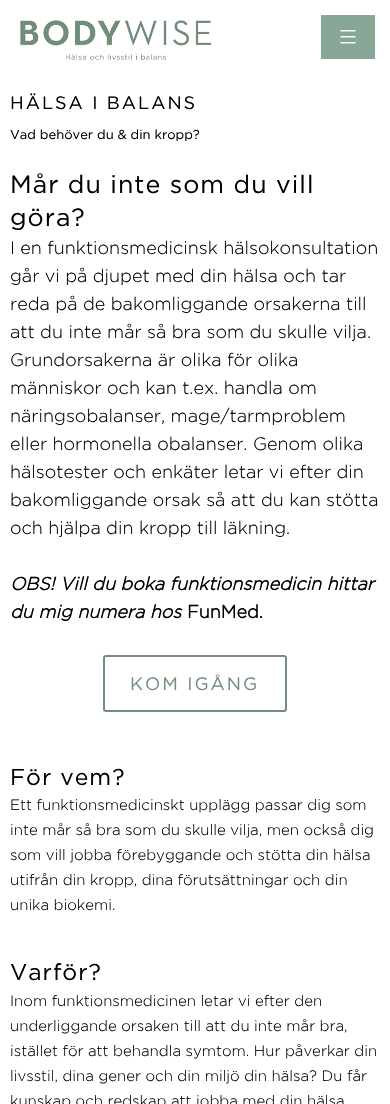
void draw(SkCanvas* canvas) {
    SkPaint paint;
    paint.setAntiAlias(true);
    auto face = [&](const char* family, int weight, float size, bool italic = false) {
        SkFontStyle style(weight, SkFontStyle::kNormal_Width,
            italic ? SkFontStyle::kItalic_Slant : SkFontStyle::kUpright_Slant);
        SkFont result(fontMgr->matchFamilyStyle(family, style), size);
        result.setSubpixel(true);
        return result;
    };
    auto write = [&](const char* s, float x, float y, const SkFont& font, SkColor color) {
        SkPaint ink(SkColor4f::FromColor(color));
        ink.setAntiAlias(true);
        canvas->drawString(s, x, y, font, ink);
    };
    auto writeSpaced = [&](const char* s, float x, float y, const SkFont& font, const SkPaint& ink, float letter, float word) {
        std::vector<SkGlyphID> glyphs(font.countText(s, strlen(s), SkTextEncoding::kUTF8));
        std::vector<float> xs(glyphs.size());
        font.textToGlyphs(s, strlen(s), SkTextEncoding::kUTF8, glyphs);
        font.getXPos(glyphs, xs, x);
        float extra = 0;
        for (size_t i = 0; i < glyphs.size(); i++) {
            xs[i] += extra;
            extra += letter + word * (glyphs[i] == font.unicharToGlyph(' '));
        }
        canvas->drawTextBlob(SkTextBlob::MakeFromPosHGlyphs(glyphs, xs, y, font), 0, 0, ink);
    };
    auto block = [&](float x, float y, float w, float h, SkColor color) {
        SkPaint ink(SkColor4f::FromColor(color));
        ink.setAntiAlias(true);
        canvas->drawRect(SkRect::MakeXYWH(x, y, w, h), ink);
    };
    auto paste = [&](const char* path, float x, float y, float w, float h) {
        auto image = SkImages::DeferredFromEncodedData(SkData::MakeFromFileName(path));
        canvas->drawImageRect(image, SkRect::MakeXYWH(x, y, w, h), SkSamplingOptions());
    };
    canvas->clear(SK_ColorWHITE);
    paste("pic1.png", 20, 20, 191, 40);
    block(321, 15, 54, 44, SkColorSetRGB(135, 166, 149));
    paste("pic2.png", 340, 30, 16, 14);
    auto kFont1 = face("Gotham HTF", 400, 18);
    paint.setColor(SK_ColorBLACK);
    writeSpaced("HÄLSA I BALANS", 10, 109, kFont1, paint, 2, 0);
    auto kFont2 = face("Gotham HTF", 400, 13);
    write("Vad behöver du & din kropp?", 10, 139, kFont2, SK_ColorBLACK);
    auto kFont3 = face("Gotham HTF", 400, 25);
    writeSpaced("Mår du inte som du vill", 10, 193, kFont3, paint, 1, 0);
    writeSpaced("göra?", 10, 226, kFont3, paint, 1, 0);
    auto kFont4 = face("Gotham", 300, 18);
    write("I en funktionsmedicinsk hälsokonsultation", 10, 254, kFont4, SK_ColorBLACK);
    write("går vi på djupet med din hälsa och tar", 10, 282, kFont4, SK_ColorBLACK);
    write("reda på de bakomliggande orsakerna till", 10, 310, kFont4, SK_ColorBLACK);
    write("att du inte mår så bra som du skulle vilja.", 10, 338, kFont4, SK_ColorBLACK);
    write("Grundorsakerna är olika för olika", 10, 366, kFont4, SK_ColorBLACK);
    write("människor och kan t.ex. handla om", 10, 394, kFont4, SK_ColorBLACK);
    write("näringsobalanser, mage/tarmproblem", 10, 422, kFont4, SK_ColorBLACK);
    write("eller hormonella obalanser. Genom olika", 10, 450, kFont4, SK_ColorBLACK);
    write("hälsotester och enkäter letar vi efter din", 10, 478, kFont4, SK_ColorBLACK);
    write("bakomliggande orsak så att du kan stötta", 10, 506, kFont4, SK_ColorBLACK);
    write("och hjälpa din kropp till läkning.", 10, 534, kFont4, SK_ColorBLACK);
    auto kFont5 = face("Gotham", 700, 18, true);
    write("OBS! Vill du boka funktionsmedicin hittar", 10, 590, kFont5, SK_ColorBLACK);
    write("du mig numera hos", 10, 618, kFont5, SK_ColorBLACK);
    auto kFont6 = face("Gotham", 700, 18);
    write("FunMed.", 187, 618, kFont6, SK_ColorBLACK);
    paint.setStyle(SkPaint::kStroke_Style);
    paint.setStrokeWidth(2);
    paint.setColor(SkColorSetRGB(112, 142, 120));
    canvas->drawRoundRect(SkRect::MakeXYWH(104, 656, 182, 55), 2, 2, paint);
    paint.setStyle(SkPaint::kFill_Style);
    writeSpaced("KOM IGÅNG", 130, 690, kFont1, paint, 2, 0);
    auto kFont7 = face("Gotham HTF", 400, 23);
    paint.setColor(SK_ColorBLACK);
    writeSpaced("För vem?", 10, 785, kFont7, paint, 1, 0);
    auto kFont8 = face("Gotham", 300, 15);
    write("Ett funktionsmedicinskt upplägg passar dig som", 10, 810, kFont8, SK_ColorBLACK);
    write("inte mår så bra som du skulle vilja, men också dig", 10, 835, kFont8, SK_ColorBLACK);
    write("som vill jobba förebyggande och stötta din hälsa", 10, 860, kFont8, SK_ColorBLACK);
    write("utifrån din kropp, dina förutsättningar och din", 10, 885, kFont8, SK_ColorBLACK);
    write("unika biokemi.", 10, 910, kFont8, SK_ColorBLACK);
    writeSpaced("Varför?", 10, 980, kFont7, paint, 1, 0);
    write("Inom funktionsmedicinen letar vi efter den", 10, 1006, kFont8, SK_ColorBLACK);
    write("underliggande orsaken till att du inte mår bra,", 10, 1031, kFont8, SK_ColorBLACK);
    write("istället för att behandla symtom. Hur påverkar din", 10, 1056, kFont8, SK_ColorBLACK);
    write("livsstil, dina gener och din miljö din hälsa? Du får", 10, 1081, kFont8, SK_ColorBLACK);
    write("kunskap och redskap att jobba med din hälsa", 10, 1106, kFont8, SK_ColorBLACK);
}
